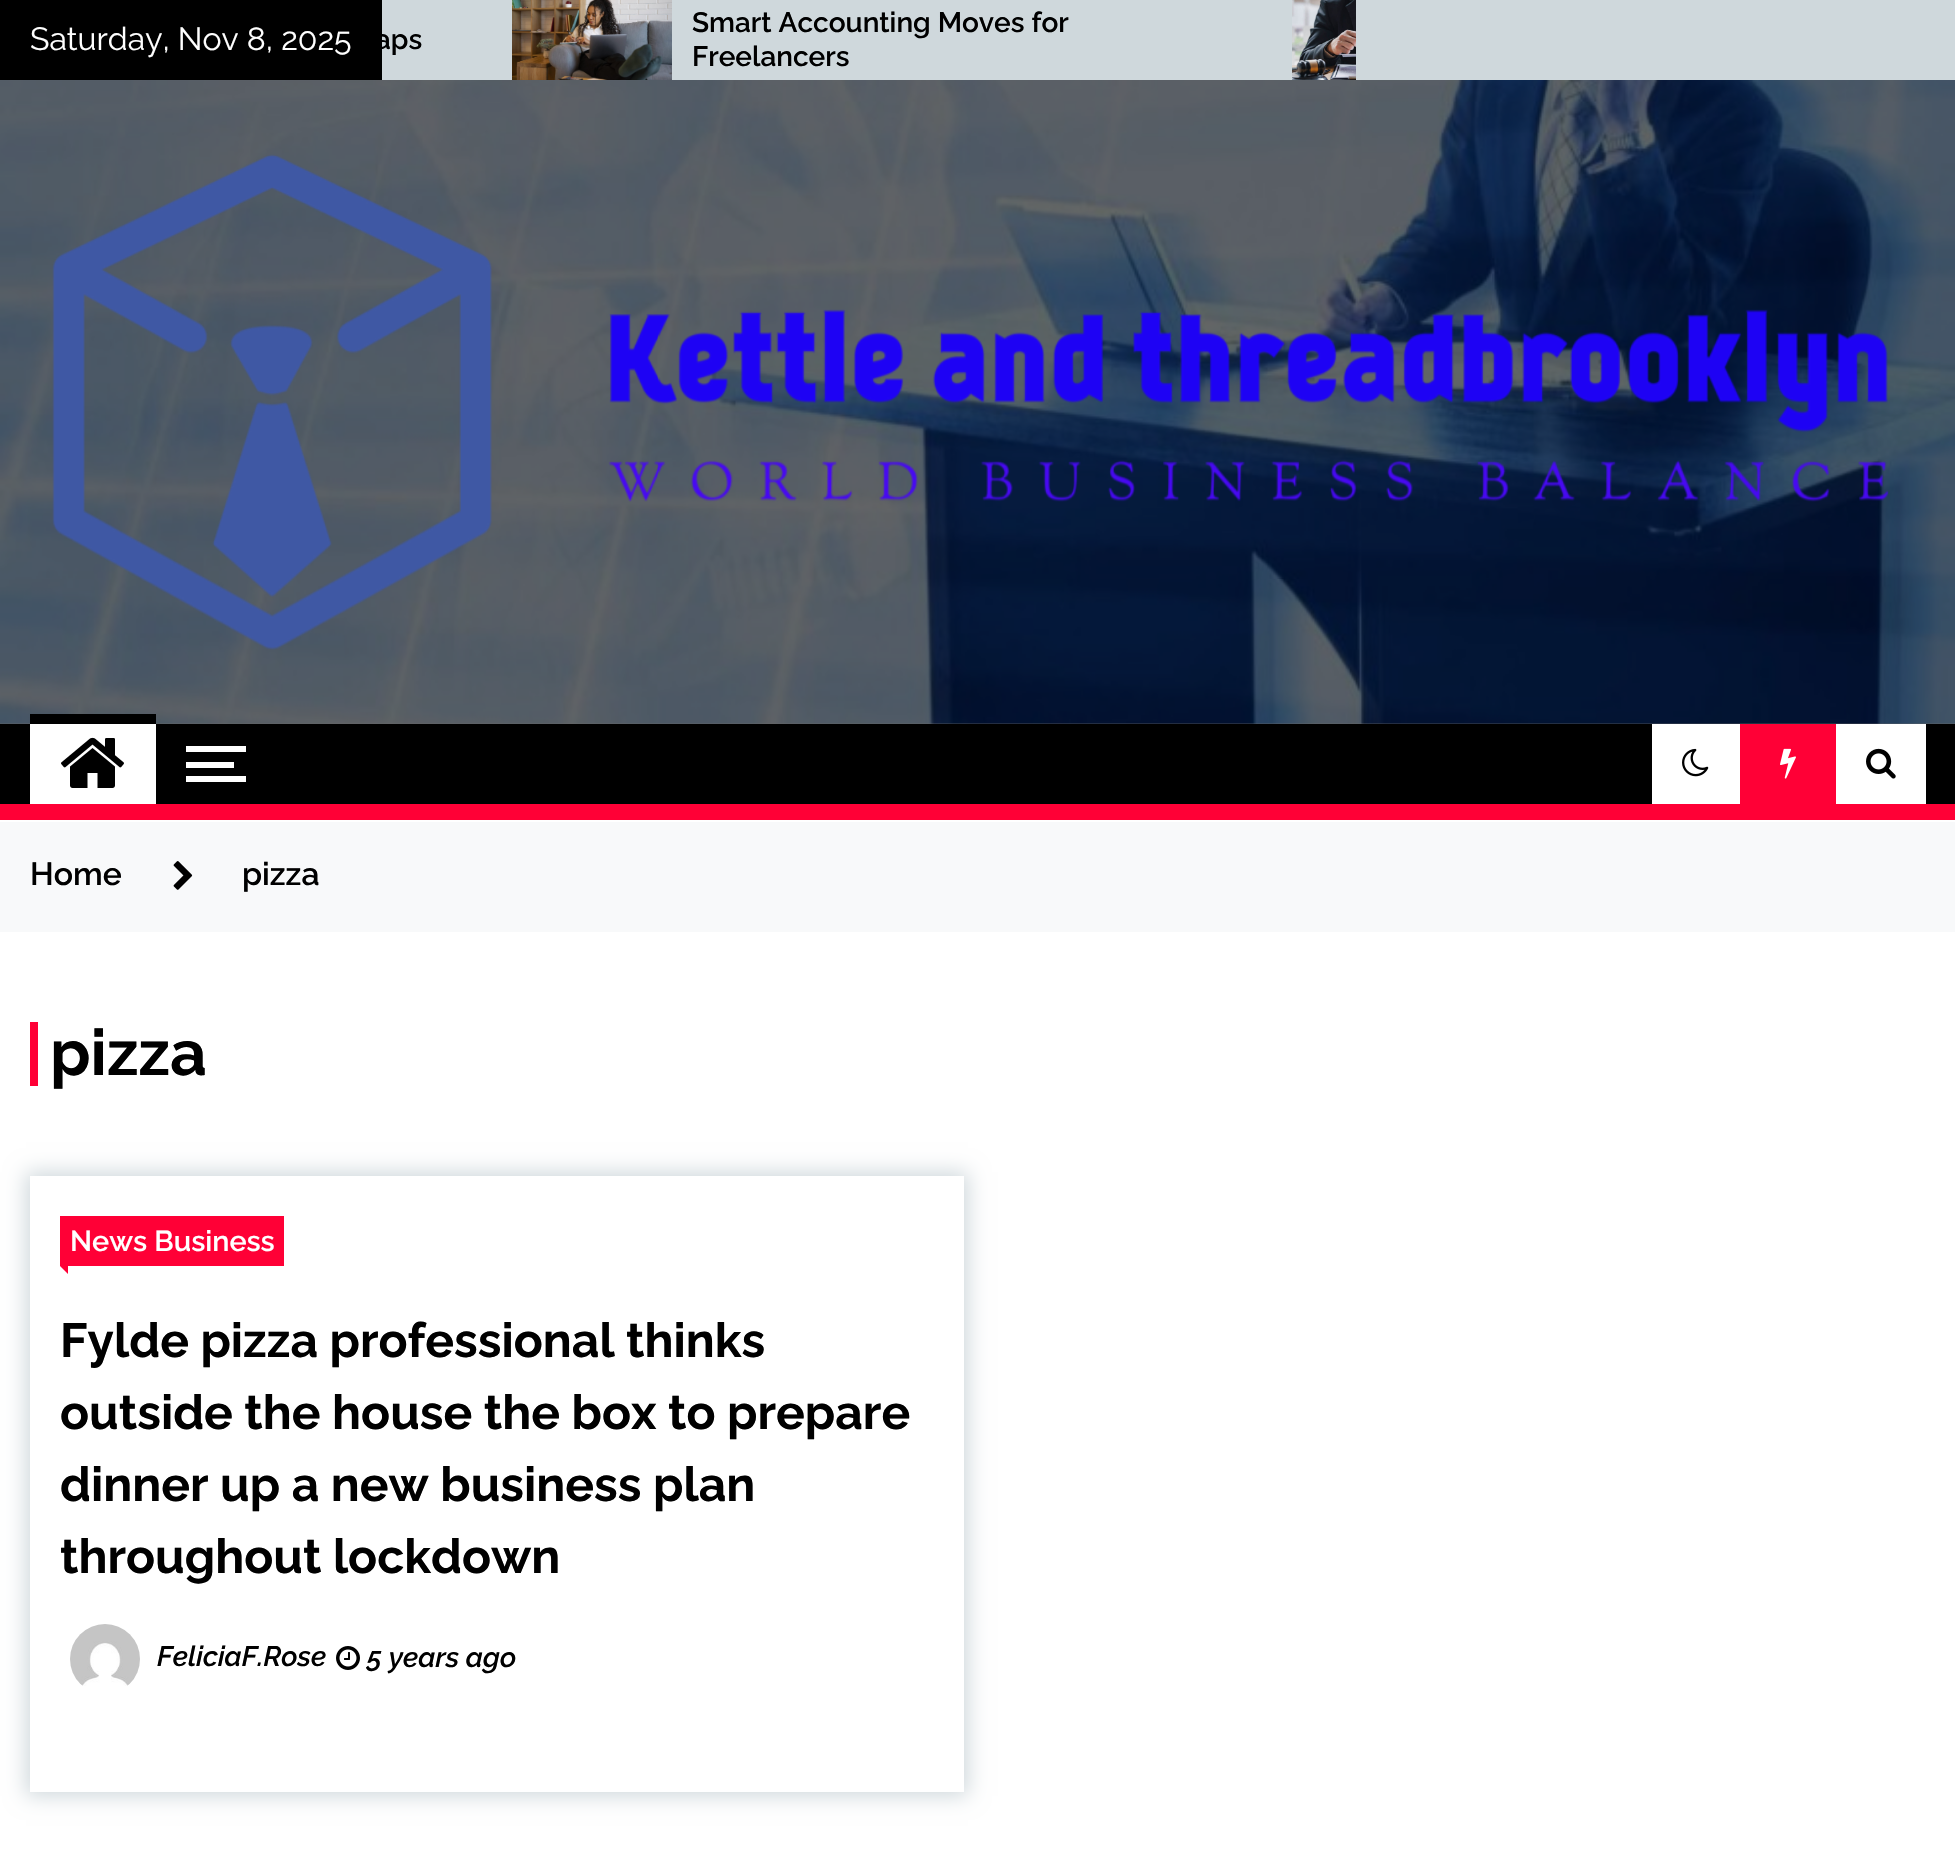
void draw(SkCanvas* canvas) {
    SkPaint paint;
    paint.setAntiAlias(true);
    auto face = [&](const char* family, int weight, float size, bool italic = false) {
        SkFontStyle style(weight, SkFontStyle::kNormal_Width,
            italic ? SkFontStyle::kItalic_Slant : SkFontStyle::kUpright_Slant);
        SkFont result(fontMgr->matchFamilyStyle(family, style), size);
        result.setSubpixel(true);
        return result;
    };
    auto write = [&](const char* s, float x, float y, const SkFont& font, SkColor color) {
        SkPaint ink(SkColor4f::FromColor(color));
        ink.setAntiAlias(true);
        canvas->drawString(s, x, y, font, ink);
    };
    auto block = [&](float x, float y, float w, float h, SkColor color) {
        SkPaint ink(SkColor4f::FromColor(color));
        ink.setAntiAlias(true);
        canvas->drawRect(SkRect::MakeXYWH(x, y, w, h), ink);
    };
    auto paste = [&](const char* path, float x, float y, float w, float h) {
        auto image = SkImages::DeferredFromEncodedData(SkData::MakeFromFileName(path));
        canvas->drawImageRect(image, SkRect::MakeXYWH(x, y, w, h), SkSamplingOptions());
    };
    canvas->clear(SK_ColorWHITE);
    block(0, 723, 1955, 1, SkColorSetRGB(102, 102, 102));
    block(382, 0, 1573, 80, SkColorSetRGB(207, 216, 220));
    block(0, 0, 382, 80, SK_ColorBLACK);
    auto kFont1 = face("Raleway", 400, 32);
    write("Saturday, Nov 8, 2025", 30, 50, kFont1, SK_ColorWHITE);
    canvas->save();
    canvas->clipRect(SkRect::MakeXYWH(382, 24, 70, 32));
    auto kFont2 = face("Raleway", 600, 28);
    write("aps", 375, 49, kFont2, SK_ColorBLACK);
    canvas->restore();
    paste("pic1.png", 512, 0, 160, 80);
    write("Smart Accounting Moves for", 692, 32, kFont2, SK_ColorBLACK);
    write("Freelancers", 692, 66, kFont2, SK_ColorBLACK);
    paste("pic2.png", 1292, 0, 64, 80);
    paste("pic3.png", 0, 80, 1955, 644);
    paste("pic4.png", 52, 154, 1837, 496);
    block(0, 724, 1955, 80, SK_ColorBLACK);
    block(30, 724, 126, 80, SK_ColorWHITE);
    block(30, 714, 126, 10, SK_ColorBLACK);
    paste("pic5.png", 61, 737, 63, 51);
    block(186, 746, 60, 6, SK_ColorWHITE);
    block(186, 776, 60, 6, SK_ColorWHITE);
    block(186, 762, 48, 6, SK_ColorWHITE);
    block(1652, 724, 88, 80, SK_ColorWHITE);
    paste("pic6.png", 1682, 748, 27, 29);
    block(1740, 724, 96, 80, SkColorSetRGB(255, 0, 54));
    paste("pic7.png", 1780, 748, 16, 31);
    block(1836, 724, 90, 80, SK_ColorWHITE);
    paste("pic8.png", 1866, 748, 30, 31);
    block(0, 804, 1955, 16, SkColorSetRGB(255, 0, 54));
    block(0, 822, 1955, 110, SkColorSetRGB(248, 249, 250));
    auto kFont3 = face("Raleway", 600, 32);
    write("Home", 30, 885, kFont3, SK_ColorBLACK);
    paste("pic9.png", 173, 861, 20, 29);
    write("pizza", 242, 885, kFont3, SK_ColorBLACK);
    block(30, 1022, 8, 64, SkColorSetRGB(255, 0, 54));
    auto kFont4 = face("Raleway", 700, 64);
    write("pizza", 50, 1075, kFont4, SK_ColorBLACK);
    canvas->save();
    canvas->clipPath(SkPathBuilder(SkPathFillType::kEvenOdd).moveTo(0, 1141).lineTo(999, 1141).lineTo(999, 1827).lineTo(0, 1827).close().moveTo(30, 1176).lineTo(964, 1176).lineTo(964, 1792).lineTo(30, 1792).close().detach(), true);
    paint.setColor(SkColorSetRGB(207, 216, 220));
    paint.setMaskFilter(SkMaskFilter::MakeBlur(kNormal_SkBlurStyle, 10));
    canvas->drawRect(SkRect::MakeXYWH(26, 1172, 942, 624), paint);
    paint.setMaskFilter(nullptr);
    canvas->restore();
    block(60, 1216, 224, 50, SkColorSetRGB(255, 0, 54));
    auto kFont5 = face("Raleway", 600, 28.75f);
    write("News Business", 70, 1251, kFont5, SK_ColorWHITE);
    paint.setColor(SkColorSetRGB(255, 0, 54));
    canvas->drawPath(SkPathBuilder().moveTo(68, 1266).lineTo(68, 1274).lineTo(60, 1266).close().detach(), paint);
    auto kFont6 = face("Raleway", 700, 48);
    write("Fylde pizza professional thinks", 60, 1357, kFont6, SK_ColorBLACK);
    write("outside the house the box to prepare", 60, 1429, kFont6, SK_ColorBLACK);
    write("dinner up a new business plan", 60, 1501, kFont6, SK_ColorBLACK);
    write("throughout lockdown", 60, 1573, kFont6, SK_ColorBLACK);
    paste("pic10.png", 70, 1624, 70, 62);
    auto kFont7 = face("Raleway", 600, 28, true);
    write("FeliciaF.Rose", 157, 1666, kFont7, SK_ColorBLACK);
    paste("pic11.png", 336, 1646, 24, 24);
    write("5 years ago", 367, 1667, kFont7, SK_ColorBLACK);
}
